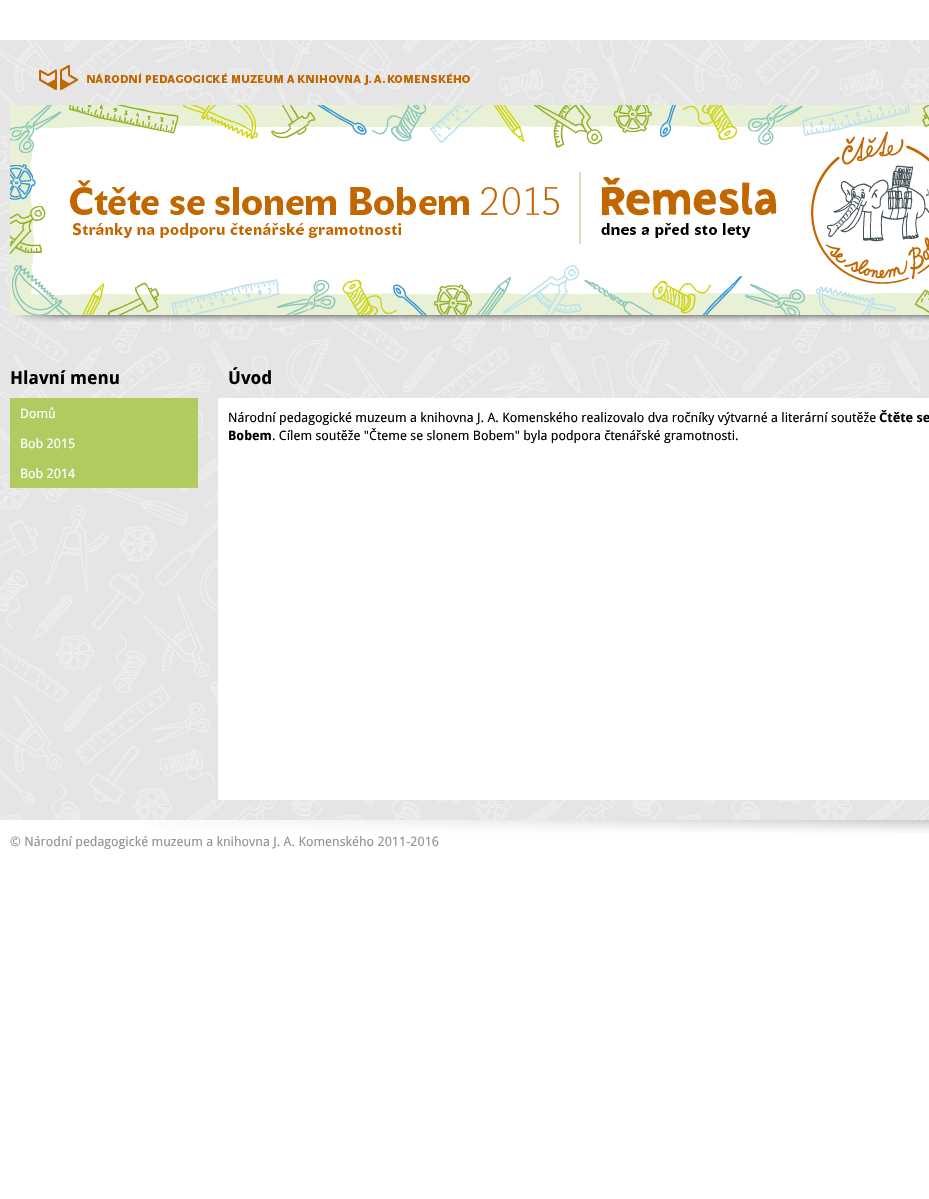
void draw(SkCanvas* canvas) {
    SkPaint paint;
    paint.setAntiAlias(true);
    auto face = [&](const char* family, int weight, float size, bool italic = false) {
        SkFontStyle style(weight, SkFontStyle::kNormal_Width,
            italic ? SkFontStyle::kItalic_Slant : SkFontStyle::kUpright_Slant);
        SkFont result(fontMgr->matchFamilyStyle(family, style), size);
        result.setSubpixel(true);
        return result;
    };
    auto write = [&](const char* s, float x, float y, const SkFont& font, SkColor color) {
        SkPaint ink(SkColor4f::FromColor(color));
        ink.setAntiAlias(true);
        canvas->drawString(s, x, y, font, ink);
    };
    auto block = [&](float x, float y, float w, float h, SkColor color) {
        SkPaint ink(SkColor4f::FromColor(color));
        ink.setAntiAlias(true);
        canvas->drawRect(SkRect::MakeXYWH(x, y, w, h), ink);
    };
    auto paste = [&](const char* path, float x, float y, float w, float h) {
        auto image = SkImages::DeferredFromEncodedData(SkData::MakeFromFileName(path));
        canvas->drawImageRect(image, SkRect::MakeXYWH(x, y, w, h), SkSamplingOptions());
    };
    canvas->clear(SK_ColorWHITE);
    paste("pic1.png", 0, 40, 929, 780);
    paste("pic2.png", 39, 65, 431, 25);
    paste("pic3.png", 10, 105, 919, 210);
    paste("pic4.png", 13, 315, 916, 7);
    auto kFont1 = face("Droid Sans", 700, 18);
    write("Hlavní menu", 10, 384, kFont1, SK_ColorBLACK);
    block(10, 398, 188, 90, SkColorSetRGB(176, 204, 96));
    auto kFont2 = face("Droid Sans", 400, 13);
    write("Domů", 20, 418, kFont2, SK_ColorWHITE);
    write("Bob 2015", 20, 448, kFont2, SK_ColorWHITE);
    write("Bob 2014", 20, 478, kFont2, SK_ColorWHITE);
    write("Úvod", 228, 384, kFont1, SK_ColorBLACK);
    block(218, 398, 711, 402, SK_ColorWHITE);
    write("Národní pedagogické muzeum a knihovna J. A. Komenského realizovalo dva ročníky výtvarné a literární soutěže", 228, 422, kFont2, SK_ColorBLACK);
    auto kFont3 = face("Droid Sans", 700, 13);
    write("Čtěte se", 879, 422, kFont3, SK_ColorBLACK);
    write("Bobem", 228, 440, kFont3, SK_ColorBLACK);
    write(". Cílem soutěže \"Čteme se slonem Bobem\" byla podpora čtenářské gramotnosti.", 272, 440, kFont2, SK_ColorBLACK);
    paste("pic5.png", 145, 820, 784, 13);
    write("© Národní pedagogické muzeum a knihovna J. A. Komenského 2011-2016", 10, 846, kFont2, SkColorSetRGB(147, 147, 147));
}
